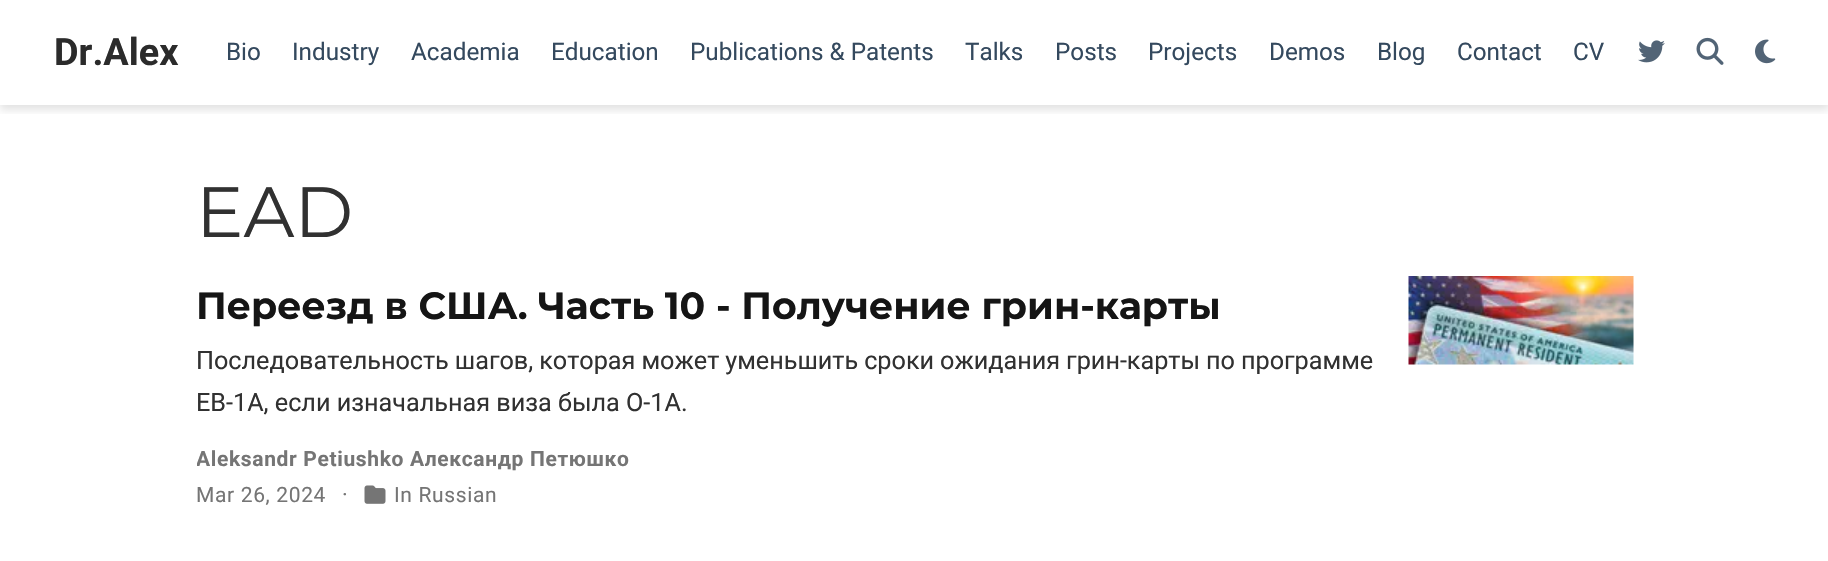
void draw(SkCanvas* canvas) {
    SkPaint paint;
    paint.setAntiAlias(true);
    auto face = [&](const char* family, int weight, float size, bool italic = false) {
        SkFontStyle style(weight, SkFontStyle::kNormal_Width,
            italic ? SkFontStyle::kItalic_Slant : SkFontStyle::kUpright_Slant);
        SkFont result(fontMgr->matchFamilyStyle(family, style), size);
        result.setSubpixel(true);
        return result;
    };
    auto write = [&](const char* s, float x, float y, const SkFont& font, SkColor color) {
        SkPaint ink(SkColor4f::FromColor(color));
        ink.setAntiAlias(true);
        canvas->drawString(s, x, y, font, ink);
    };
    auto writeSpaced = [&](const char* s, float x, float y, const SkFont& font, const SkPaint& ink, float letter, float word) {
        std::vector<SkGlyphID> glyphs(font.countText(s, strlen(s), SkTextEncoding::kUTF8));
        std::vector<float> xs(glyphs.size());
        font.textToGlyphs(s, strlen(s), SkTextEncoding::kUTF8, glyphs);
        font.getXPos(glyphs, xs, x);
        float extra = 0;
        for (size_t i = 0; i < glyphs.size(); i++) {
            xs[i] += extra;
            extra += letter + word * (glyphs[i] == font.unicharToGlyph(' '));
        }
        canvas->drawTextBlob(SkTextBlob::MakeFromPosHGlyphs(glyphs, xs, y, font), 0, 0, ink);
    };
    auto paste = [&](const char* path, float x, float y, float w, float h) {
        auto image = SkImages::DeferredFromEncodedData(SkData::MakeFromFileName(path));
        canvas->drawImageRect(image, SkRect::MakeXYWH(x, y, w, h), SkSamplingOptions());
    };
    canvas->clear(SK_ColorWHITE);
    canvas->save();
    canvas->clipRect(SkRect::MakeXYWH(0, 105, 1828, 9));
    paint.setColor(SkColorSetARGB(28, 0, 0, 0));
    paint.setMaskFilter(SkMaskFilter::MakeBlur(kNormal_SkBlurStyle, 4));
    canvas->drawRect(SkRect::MakeXYWH(0, 5, 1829, 105), paint);
    paint.setMaskFilter(nullptr);
    canvas->restore();
    auto kFont1 = face("Roboto", 700, 37.8f);
    write("Dr.Alex", 54, 65, kFont1, SkColorSetRGB(43, 43, 43));
    auto kFont2 = face("Roboto", 400, 24.25f);
    write("Bio", 226, 60, kFont2, SkColorSetRGB(52, 73, 94));
    write("Industry", 292, 60, kFont2, SkColorSetRGB(52, 73, 94));
    write("Academia", 411, 60, kFont2, SkColorSetRGB(52, 73, 94));
    write("Education", 551, 60, kFont2, SkColorSetRGB(52, 73, 94));
    write("Publications & Patents", 690, 60, kFont2, SkColorSetRGB(52, 73, 94));
    write("Talks", 965, 60, kFont2, SkColorSetRGB(52, 73, 94));
    write("Posts", 1055, 60, kFont2, SkColorSetRGB(52, 73, 94));
    write("Projects", 1148, 60, kFont2, SkColorSetRGB(52, 73, 94));
    write("Demos", 1269, 60, kFont2, SkColorSetRGB(52, 73, 94));
    write("Blog", 1377, 60, kFont2, SkColorSetRGB(52, 73, 94));
    write("Contact", 1457, 60, kFont2, SkColorSetRGB(52, 73, 94));
    write("CV", 1573, 60, kFont2, SkColorSetRGB(52, 73, 94));
    paste("pic1.png", 1638, 40, 27, 23);
    paste("pic2.png", 1696, 37, 28, 28);
    paste("pic3.png", 1755, 39, 21, 25);
    auto kFont3 = face("Montserrat", 400, 71);
    write("EAD", 196, 237, kFont3, SkColorSetRGB(49, 49, 49));
    auto kFont4 = face("Montserrat", 700, 37.8f);
    write("Переезд в США. Часть 10 - Получение грин-карты", 196, 319, kFont4, SkColorSetRGB(21, 21, 21));
    auto kFont5 = face("Roboto", 400, 25.2f);
    paint.setColor(SkColorSetRGB(49, 49, 49));
    writeSpaced("Последовательность шагов, которая может уменьшить сроки ожидания грин-карты по программе", 196, 369, kFont5, paint, 0, -0.25f);
    write("EB-1A, если изначальная виза была O-1A.", 196, 411, kFont5, SkColorSetRGB(49, 49, 49));
    canvas->save();
    canvas->clipRect(SkRect::MakeXYWH(197, 443, 1180, 70));
    auto kFont6 = face("Roboto", 700, 21);
    paint.setColor(SkColorSetRGB(117, 117, 117));
    writeSpaced("Aleksandr Petiushko Александр Петюшко", 196, 466, kFont6, paint, 0.65f, 0);
    canvas->restore();
    auto kFont7 = face("Roboto", 400, 21);
    writeSpaced("Mar 26, 2024", 196, 502, kFont7, paint, 0.65f, 0);
    auto kFont8 = face("Roboto", 400, 22);
    writeSpaced("·", 342, 502, kFont8, paint, 0.65f, 0);
    paste("pic4.png", 364, 485, 22, 19);
    writeSpaced("In Russian", 394, 502, kFont7, paint, 0.65f, 0);
    paste("pic5.png", 1408, 276, 226, 89);
}
